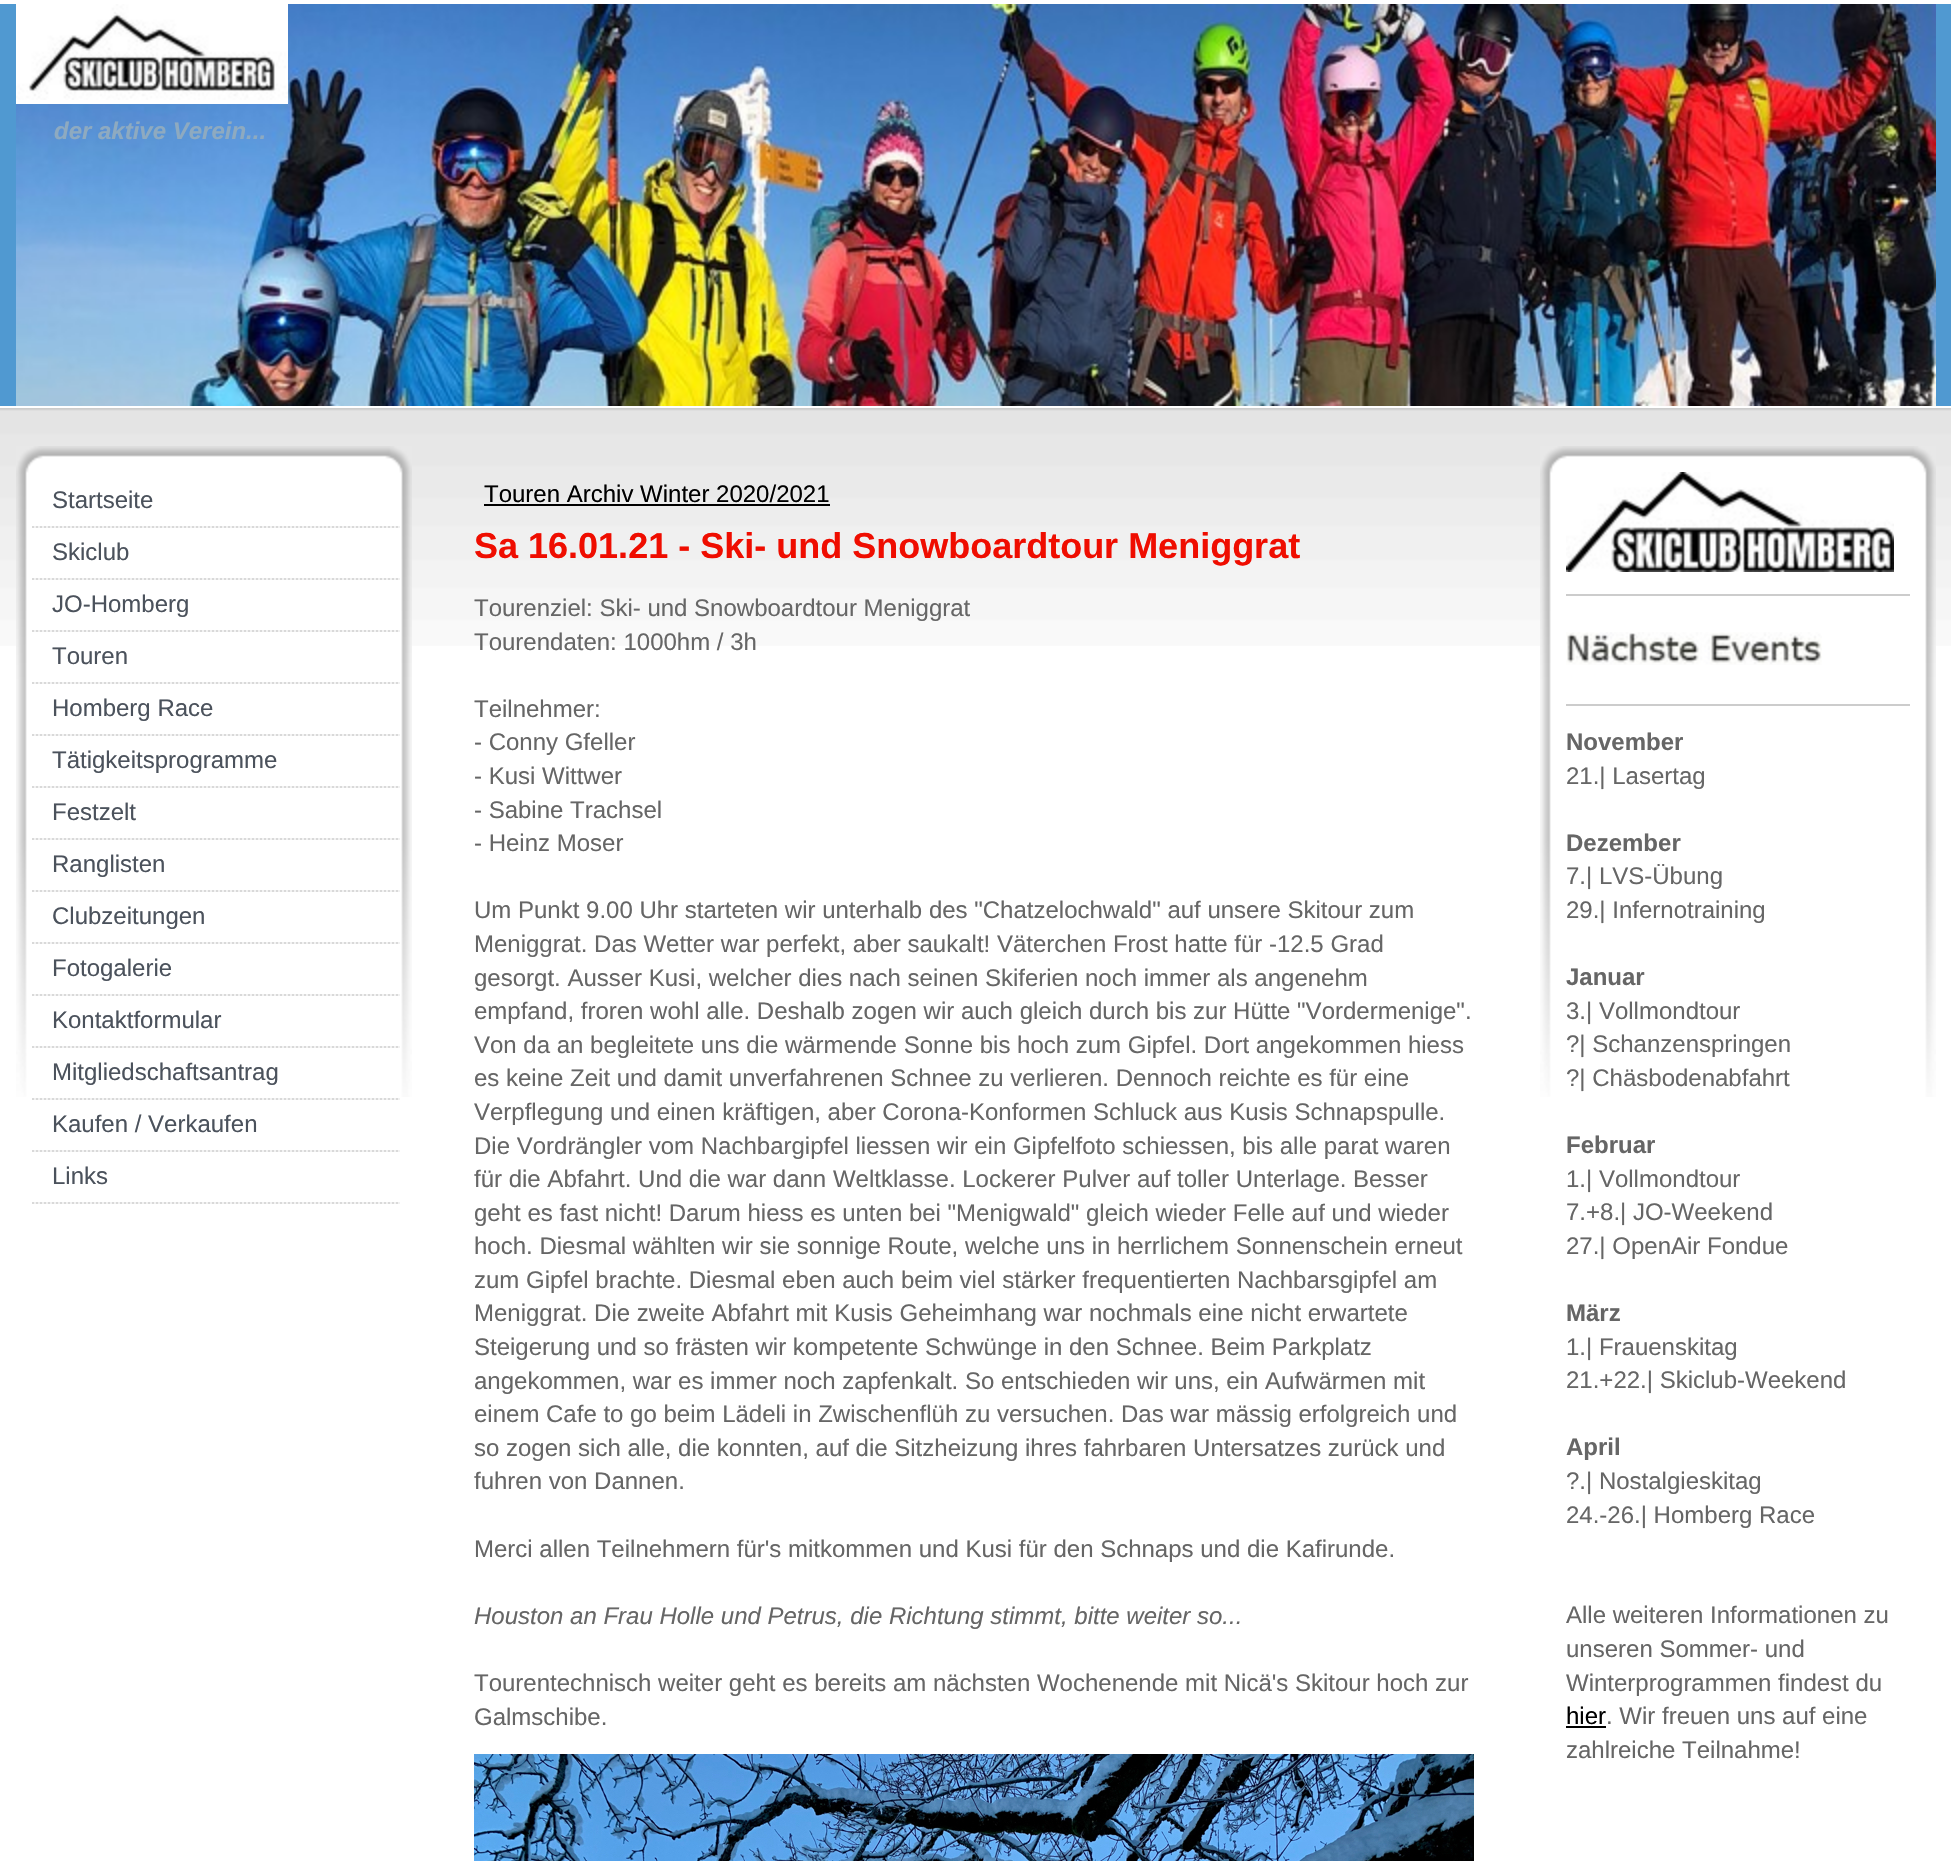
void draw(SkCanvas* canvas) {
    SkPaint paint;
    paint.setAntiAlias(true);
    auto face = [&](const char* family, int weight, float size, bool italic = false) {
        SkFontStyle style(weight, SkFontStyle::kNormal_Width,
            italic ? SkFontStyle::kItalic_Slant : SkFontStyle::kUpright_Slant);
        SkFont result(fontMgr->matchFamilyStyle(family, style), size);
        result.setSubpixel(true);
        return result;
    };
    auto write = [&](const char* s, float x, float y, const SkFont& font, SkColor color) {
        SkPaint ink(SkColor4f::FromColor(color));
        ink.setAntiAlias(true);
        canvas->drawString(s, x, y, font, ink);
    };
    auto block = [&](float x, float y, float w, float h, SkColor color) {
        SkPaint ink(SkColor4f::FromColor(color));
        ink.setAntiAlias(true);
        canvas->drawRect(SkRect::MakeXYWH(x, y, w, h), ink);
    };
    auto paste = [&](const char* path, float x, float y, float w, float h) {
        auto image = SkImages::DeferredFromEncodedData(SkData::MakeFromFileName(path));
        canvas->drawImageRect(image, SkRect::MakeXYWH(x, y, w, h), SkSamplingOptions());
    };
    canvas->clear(SkColorSetRGB(80, 153, 209));
    block(0, 0, 1951, 4, SK_ColorWHITE);
    paste("pic1.png", 16, 4, 1920, 402);
    block(16, 100, 272, 4, SK_ColorWHITE);
    paste("pic2.png", 16, 4, 272, 96);
    auto kFont1 = face("Liberation Sans", 700, 24, true);
    write("der aktive Verein...", 54, 139, kFont1, SkColorSetRGB(142, 170, 192));
    block(0, 406, 1951, 1455, SK_ColorWHITE);
    paste("pic3.png", 0, 408, 1951, 238);
    paste("pic4.png", 16, 446, 396, 651);
    paste("pic5.png", 32, 526, 368, 2);
    auto kFont2 = face("Liberation Sans", 400, 24);
    write("Startseite", 52, 508, kFont2, SkColorSetRGB(75, 82, 92));
    paste("pic5.png", 32, 578, 368, 2);
    write("Skiclub", 52, 560, kFont2, SkColorSetRGB(75, 82, 92));
    paste("pic5.png", 32, 630, 368, 2);
    write("JO-Homberg", 52, 612, kFont2, SkColorSetRGB(75, 82, 92));
    paste("pic5.png", 32, 682, 368, 2);
    write("Touren", 52, 664, kFont2, SkColorSetRGB(75, 82, 92));
    paste("pic5.png", 32, 734, 368, 2);
    write("Homberg Race", 52, 716, kFont2, SkColorSetRGB(75, 82, 92));
    paste("pic5.png", 32, 786, 368, 2);
    write("Tätigkeitsprogramme", 52, 768, kFont2, SkColorSetRGB(75, 82, 92));
    paste("pic5.png", 32, 838, 368, 2);
    write("Festzelt", 52, 820, kFont2, SkColorSetRGB(75, 82, 92));
    paste("pic5.png", 32, 890, 368, 2);
    write("Ranglisten", 52, 872, kFont2, SkColorSetRGB(75, 82, 92));
    paste("pic5.png", 32, 942, 368, 2);
    write("Clubzeitungen", 52, 924, kFont2, SkColorSetRGB(75, 82, 92));
    paste("pic5.png", 32, 994, 368, 2);
    write("Fotogalerie", 52, 976, kFont2, SkColorSetRGB(75, 82, 92));
    paste("pic5.png", 32, 1046, 368, 2);
    write("Kontaktformular", 52, 1028, kFont2, SkColorSetRGB(75, 82, 92));
    paste("pic5.png", 32, 1098, 368, 2);
    write("Mitgliedschaftsantrag", 52, 1080, kFont2, SkColorSetRGB(75, 82, 92));
    paste("pic5.png", 32, 1150, 368, 2);
    write("Kaufen / Verkaufen", 52, 1132, kFont2, SkColorSetRGB(75, 82, 92));
    paste("pic5.png", 32, 1202, 368, 2);
    write("Links", 52, 1184, kFont2, SkColorSetRGB(75, 82, 92));
    write("Touren Archiv Winter 2020/2021", 484, 502, kFont2, SK_ColorBLACK);
    block(484, 504, 346, 2, SK_ColorBLACK);
    auto kFont3 = face("Liberation Sans", 700, 36);
    write("Sa 16.01.21 - Ski- und Snowboardtour Meniggrat", 474, 558, kFont3, SkColorSetRGB(239, 13, 0));
    write("Tourenziel: Ski- und Snowboardtour Meniggrat", 474, 616, kFont2, SkColorSetRGB(102, 102, 102));
    write("Tourendaten: 1000hm / 3h", 474, 650, kFont2, SkColorSetRGB(102, 102, 102));
    write("Teilnehmer:", 474, 717, kFont2, SkColorSetRGB(102, 102, 102));
    write("- Conny Gfeller", 474, 750, kFont2, SkColorSetRGB(102, 102, 102));
    write("- Kusi Wittwer", 474, 784, kFont2, SkColorSetRGB(102, 102, 102));
    write("- Sabine Trachsel", 474, 818, kFont2, SkColorSetRGB(102, 102, 102));
    write("- Heinz Moser", 474, 851, kFont2, SkColorSetRGB(102, 102, 102));
    write("Um Punkt 9.00 Uhr starteten wir unterhalb des \"Chatzelochwald\" auf unsere Skitour zum", 474, 918, kFont2, SkColorSetRGB(102, 102, 102));
    write("Meniggrat. Das Wetter war perfekt, aber saukalt! Väterchen Frost hatte für -12.5 Grad", 474, 952, kFont2, SkColorSetRGB(102, 102, 102));
    write("gesorgt. Ausser Kusi, welcher dies nach seinen Skiferien noch immer als angenehm", 474, 986, kFont2, SkColorSetRGB(102, 102, 102));
    write("empfand, froren wohl alle. Deshalb zogen wir auch gleich durch bis zur Hütte \"Vordermenige\".", 474, 1019, kFont2, SkColorSetRGB(102, 102, 102));
    write("Von da an begleitete uns die wärmende Sonne bis hoch zum Gipfel. Dort angekommen hiess", 474, 1053, kFont2, SkColorSetRGB(102, 102, 102));
    write("es keine Zeit und damit unverfahrenen Schnee zu verlieren. Dennoch reichte es für eine", 474, 1086, kFont2, SkColorSetRGB(102, 102, 102));
    write("Verpflegung und einen kräftigen, aber Corona-Konformen Schluck aus Kusis Schnapspulle.", 474, 1120, kFont2, SkColorSetRGB(102, 102, 102));
    write("Die Vordrängler vom Nachbargipfel liessen wir ein Gipfelfoto schiessen, bis alle parat waren", 474, 1154, kFont2, SkColorSetRGB(102, 102, 102));
    write("für die Abfahrt. Und die war dann Weltklasse. Lockerer Pulver auf toller Unterlage. Besser", 474, 1187, kFont2, SkColorSetRGB(102, 102, 102));
    write("geht es fast nicht! Darum hiess es unten bei \"Menigwald\" gleich wieder Felle auf und wieder", 474, 1221, kFont2, SkColorSetRGB(102, 102, 102));
    write("hoch. Diesmal wählten wir sie sonnige Route, welche uns in herrlichem Sonnenschein erneut", 474, 1254, kFont2, SkColorSetRGB(102, 102, 102));
    write("zum Gipfel brachte. Diesmal eben auch beim viel stärker frequentierten Nachbarsgipfel am", 474, 1288, kFont2, SkColorSetRGB(102, 102, 102));
    write("Meniggrat. Die zweite Abfahrt mit Kusis Geheimhang war nochmals eine nicht erwartete", 474, 1321, kFont2, SkColorSetRGB(102, 102, 102));
    write("Steigerung und so frästen wir kompetente Schwünge in den Schnee. Beim Parkplatz", 474, 1355, kFont2, SkColorSetRGB(102, 102, 102));
    write("angekommen, war es immer noch zapfenkalt. So entschieden wir uns, ein Aufwärmen mit", 474, 1389, kFont2, SkColorSetRGB(102, 102, 102));
    write("einem Cafe to go beim Lädeli in Zwischenflüh zu versuchen. Das war mässig erfolgreich und", 474, 1422, kFont2, SkColorSetRGB(102, 102, 102));
    write("so zogen sich alle, die konnten, auf die Sitzheizung ihres fahrbaren Untersatzes zurück und", 474, 1456, kFont2, SkColorSetRGB(102, 102, 102));
    write("fuhren von Dannen.", 474, 1489, kFont2, SkColorSetRGB(102, 102, 102));
    write("Merci allen Teilnehmern für's mitkommen und Kusi für den Schnaps und die Kafirunde.", 474, 1557, kFont2, SkColorSetRGB(102, 102, 102));
    auto kFont4 = face("Liberation Sans", 400, 24, true);
    write("Houston an Frau Holle und Petrus, die Richtung stimmt, bitte weiter so...", 474, 1624, kFont4, SkColorSetRGB(102, 102, 102));
    write("Tourentechnisch weiter geht es bereits am nächsten Wochenende mit Nicä's Skitour hoch zur", 474, 1691, kFont2, SkColorSetRGB(102, 102, 102));
    write("Galmschibe.", 474, 1725, kFont2, SkColorSetRGB(102, 102, 102));
    paste("pic6.png", 474, 1754, 1000, 107);
    paste("pic4.png", 1540, 446, 396, 651);
    paste("pic7.png", 1566, 472, 328, 100);
    block(1566, 594, 344, 2, SkColorSetRGB(204, 204, 204));
    paste("pic8.png", 1566, 632, 256, 33);
    block(1566, 704, 344, 2, SkColorSetRGB(204, 204, 204));
    auto kFont5 = face("Liberation Sans", 700, 24);
    write("November", 1566, 750, kFont5, SkColorSetRGB(102, 102, 102));
    write("21.| Lasertag", 1566, 784, kFont2, SkColorSetRGB(102, 102, 102));
    write("Dezember", 1566, 851, kFont5, SkColorSetRGB(102, 102, 102));
    write("7.| LVS-Übung", 1566, 884, kFont2, SkColorSetRGB(102, 102, 102));
    write("29.| Infernotraining", 1566, 918, kFont2, SkColorSetRGB(102, 102, 102));
    write("Januar", 1566, 985, kFont5, SkColorSetRGB(102, 102, 102));
    write("3.| Vollmondtour", 1566, 1019, kFont2, SkColorSetRGB(102, 102, 102));
    write("?| Schanzenspringen", 1566, 1052, kFont2, SkColorSetRGB(102, 102, 102));
    write("?| Chäsbodenabfahrt", 1566, 1086, kFont2, SkColorSetRGB(102, 102, 102));
    write("Februar", 1566, 1153, kFont5, SkColorSetRGB(102, 102, 102));
    write("1.| Vollmondtour", 1566, 1187, kFont2, SkColorSetRGB(102, 102, 102));
    write("7.+8.| JO-Weekend", 1566, 1220, kFont2, SkColorSetRGB(102, 102, 102));
    write("27.| OpenAir Fondue", 1566, 1254, kFont2, SkColorSetRGB(102, 102, 102));
    write("März", 1566, 1321, kFont5, SkColorSetRGB(102, 102, 102));
    write("1.| Frauenskitag", 1566, 1355, kFont2, SkColorSetRGB(102, 102, 102));
    write("21.+22.| Skiclub-Weekend", 1566, 1388, kFont2, SkColorSetRGB(102, 102, 102));
    write("April", 1566, 1455, kFont5, SkColorSetRGB(102, 102, 102));
    write("?.| Nostalgieskitag", 1566, 1489, kFont2, SkColorSetRGB(102, 102, 102));
    write("24.-26.| Homberg Race", 1566, 1523, kFont2, SkColorSetRGB(102, 102, 102));
    write("Alle weiteren Informationen zu", 1566, 1623, kFont2, SkColorSetRGB(102, 102, 102));
    write("unseren Sommer- und", 1566, 1657, kFont2, SkColorSetRGB(102, 102, 102));
    write("Winterprogrammen findest du", 1566, 1691, kFont2, SkColorSetRGB(102, 102, 102));
    write("hier", 1566, 1724, kFont2, SK_ColorBLACK);
    block(1566, 1726, 40, 2, SK_ColorBLACK);
    write(". Wir freuen uns auf eine", 1606, 1724, kFont2, SkColorSetRGB(102, 102, 102));
    write("zahlreiche Teilnahme!", 1566, 1758, kFont2, SkColorSetRGB(102, 102, 102));
}
